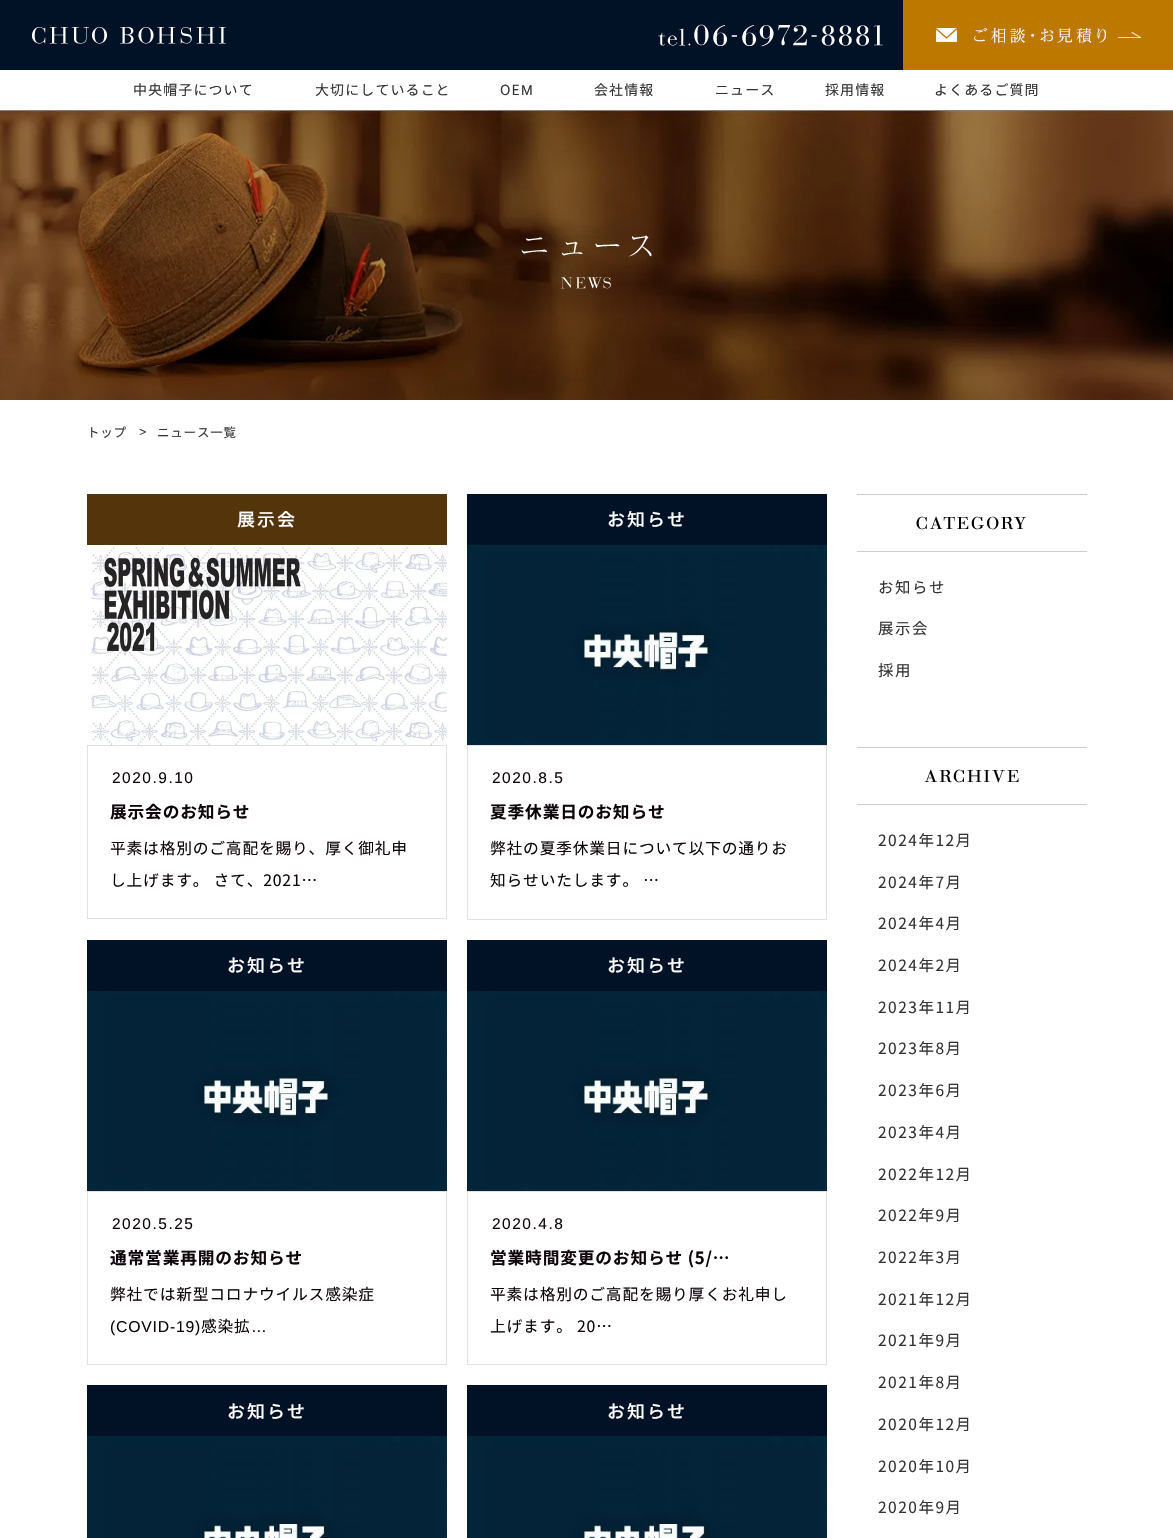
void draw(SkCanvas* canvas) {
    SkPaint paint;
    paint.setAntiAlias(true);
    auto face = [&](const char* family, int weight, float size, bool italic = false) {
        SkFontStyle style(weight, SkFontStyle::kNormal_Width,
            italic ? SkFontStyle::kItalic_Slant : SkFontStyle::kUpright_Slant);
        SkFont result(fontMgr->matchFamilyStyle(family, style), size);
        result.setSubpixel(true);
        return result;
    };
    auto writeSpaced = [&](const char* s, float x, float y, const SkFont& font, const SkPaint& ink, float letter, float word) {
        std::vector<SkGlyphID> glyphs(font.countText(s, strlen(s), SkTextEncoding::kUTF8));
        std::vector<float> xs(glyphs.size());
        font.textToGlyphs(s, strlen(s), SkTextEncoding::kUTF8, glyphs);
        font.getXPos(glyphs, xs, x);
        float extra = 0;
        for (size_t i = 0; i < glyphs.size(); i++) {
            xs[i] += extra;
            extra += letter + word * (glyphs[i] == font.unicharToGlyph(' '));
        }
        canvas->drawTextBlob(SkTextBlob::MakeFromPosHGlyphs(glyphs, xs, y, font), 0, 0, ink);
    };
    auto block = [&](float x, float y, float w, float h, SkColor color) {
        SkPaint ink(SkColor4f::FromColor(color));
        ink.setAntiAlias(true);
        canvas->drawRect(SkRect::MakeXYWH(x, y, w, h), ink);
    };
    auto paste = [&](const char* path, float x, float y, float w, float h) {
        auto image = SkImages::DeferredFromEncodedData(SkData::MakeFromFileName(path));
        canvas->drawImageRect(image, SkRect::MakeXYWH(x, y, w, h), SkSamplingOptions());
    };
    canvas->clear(SK_ColorWHITE);
    block(0, 0, 903, 70, SkColorSetRGB(1, 17, 38));
    paste("pic1.png", 32, 27, 194, 17);
    paste("pic2.png", 658, 24, 225, 23);
    paste("pic3.png", 903, 0, 270, 70);
    auto kFont1 = face("Noto Sans CJK JP", 400, 14);
    paint.setColor(SkColorSetRGB(51, 51, 51));
    writeSpaced("中央帽子について", 133, 95, kFont1, paint, 1.1f, 0);
    writeSpaced("大切にしていること", 315, 95, kFont1, paint, 1.1f, 0);
    writeSpaced("OE", 500, 95, kFont1, paint, 1.1f, 0);
    auto kFont2 = face("Liberation Sans", 400, 14);
    writeSpaced("M", 521, 95, kFont2, paint, 1.1f, 0);
    writeSpaced("会社情報", 594, 95, kFont1, paint, 1.1f, 0);
    writeSpaced("ニュース", 715, 95, kFont1, paint, 1.1f, 0);
    writeSpaced("採用情報", 825, 95, kFont1, paint, 1.1f, 0);
    writeSpaced("よくあるご質問", 934, 95, kFont1, paint, 1.1f, 0);
    paste("pic4.png", 0, 110, 1173, 290);
    paste("pic5.png", 521, 235, 131, 54);
    auto kFont3 = face("Noto Sans CJK JP", 400, 12.5f);
    writeSpaced("トップ", 87, 437, kFont3, paint, 0.8f, 0);
    auto kFont4 = face("Liberation Sans", 400, 12.5f);
    writeSpaced(">", 139, 436, kFont4, paint, 0.8f, 0);
    writeSpaced("ニュース一覧", 157, 437, kFont3, paint, 0.8f, 0);
    block(87, 494, 360, 51, SkColorSetRGB(84, 52, 10));
    auto kFont5 = face("Noto Sans CJK JP", 500, 18);
    paint.setColor(SK_ColorWHITE);
    writeSpaced("展示会", 237, 526, kFont5, paint, 2, 0);
    paste("pic6.png", 90, 547, 357, 198);
    paint.setStyle(SkPaint::kStroke_Style);
    paint.setStrokeWidth(1);
    paint.setColor(SkColorSetRGB(225, 225, 225));
    canvas->drawRect(SkRect::MakeXYWH(87.5f, 745.5f, 359, 173), paint);
    auto kFont6 = face("Liberation Sans", 400, 15.5f);
    paint.setStyle(SkPaint::kFill_Style);
    paint.setColor(SkColorSetRGB(14, 5, 11));
    writeSpaced("2020.9.10", 112, 783, kFont6, paint, 1.5f, 0);
    auto kFont7 = face("Noto Sans CJK JP", 700, 16.75f);
    writeSpaced("展示会のお知らせ", 110, 818, kFont7, paint, 0.8f, 0);
    auto kFont8 = face("Noto Sans CJK JP", 400, 15.75f);
    writeSpaced("平素は格別のご高配を賜り、厚く御礼申", 110, 854, kFont8, paint, 0.8f, 0);
    writeSpaced("し上げます。 さて、2021…", 110, 886, kFont8, paint, 0.8f, 0);
    block(467, 494, 360, 51, SkColorSetRGB(1, 17, 38));
    paint.setColor(SK_ColorWHITE);
    writeSpaced("お知らせ", 607, 526, kFont5, paint, 2, 0);
    paste("pic7.png", 467, 545, 360, 200);
    paint.setStyle(SkPaint::kStroke_Style);
    paint.setColor(SkColorSetRGB(225, 225, 225));
    canvas->drawRect(SkRect::MakeXYWH(467.5f, 745.5f, 359, 174), paint);
    paint.setStyle(SkPaint::kFill_Style);
    paint.setColor(SkColorSetRGB(14, 5, 11));
    writeSpaced("2020.8.5", 492, 783, kFont6, paint, 1.5f, 0);
    writeSpaced("夏季休業日のお知らせ", 490, 818, kFont7, paint, 0.8f, 0);
    writeSpaced("弊社の夏季休業日について以下の通りお", 490, 854, kFont8, paint, 0.8f, 0);
    writeSpaced("知らせいたします。 …", 490, 886, kFont8, paint, 0.8f, 0);
    block(87, 940, 360, 51, SkColorSetRGB(1, 17, 38));
    paint.setColor(SK_ColorWHITE);
    writeSpaced("お知らせ", 227, 972, kFont5, paint, 2, 0);
    paste("pic8.png", 87, 991, 360, 200);
    paint.setStyle(SkPaint::kStroke_Style);
    paint.setColor(SkColorSetRGB(225, 225, 225));
    canvas->drawRect(SkRect::MakeXYWH(87.5f, 1191.5f, 359, 173), paint);
    paint.setStyle(SkPaint::kFill_Style);
    paint.setColor(SkColorSetRGB(14, 5, 11));
    writeSpaced("2020.5.25", 112, 1229, kFont6, paint, 1.5f, 0);
    writeSpaced("通常営業再開のお知らせ", 110, 1264, kFont7, paint, 0.8f, 0);
    writeSpaced("弊社では新型コロナウイルス感染症", 110, 1300, kFont8, paint, 0.8f, 0);
    auto kFont9 = face("Liberation Sans", 400, 15.75f);
    writeSpaced("(COVID-19)", 110, 1332, kFont9, paint, 0.8f, 0);
    writeSpaced("感染拡", 201, 1332, kFont8, paint, 0.8f, 0);
    writeSpaced("…", 251, 1332, kFont9, paint, 0.8f, 0);
    block(467, 940, 360, 51, SkColorSetRGB(1, 17, 38));
    paint.setColor(SK_ColorWHITE);
    writeSpaced("お知らせ", 607, 972, kFont5, paint, 2, 0);
    paste("pic9.png", 467, 991, 360, 200);
    paint.setStyle(SkPaint::kStroke_Style);
    paint.setColor(SkColorSetRGB(225, 225, 225));
    canvas->drawRect(SkRect::MakeXYWH(467.5f, 1191.5f, 359, 173), paint);
    paint.setStyle(SkPaint::kFill_Style);
    paint.setColor(SkColorSetRGB(14, 5, 11));
    writeSpaced("2020.4.8", 492, 1229, kFont6, paint, 1.5f, 0);
    writeSpaced("営業時間変更のお知らせ (5/…", 490, 1264, kFont7, paint, 0.8f, 0);
    writeSpaced("平素は格別のご高配を賜り厚くお礼申し", 490, 1300, kFont8, paint, 0.8f, 0);
    writeSpaced("上げます。 20…", 490, 1332, kFont8, paint, 0.8f, 0);
    block(87, 1385, 360, 51, SkColorSetRGB(1, 17, 38));
    paint.setColor(SK_ColorWHITE);
    writeSpaced("お知らせ", 227, 1418, kFont5, paint, 2, 0);
    paste("pic10.png", 87, 1436, 360, 102);
    block(467, 1385, 360, 51, SkColorSetRGB(1, 17, 38));
    writeSpaced("お知らせ", 607, 1418, kFont5, paint, 2, 0);
    paste("pic11.png", 467, 1436, 360, 102);
    block(857, 494, 230, 1, SkColorSetRGB(204, 204, 204));
    block(857, 551, 230, 1, SkColorSetRGB(204, 204, 204));
    paste("pic12.png", 916, 516, 110, 14);
    auto kFont10 = face("Noto Sans CJK JP", 400, 15.5f);
    paint.setColor(SkColorSetRGB(51, 51, 51));
    writeSpaced("お知らせ", 878, 593, kFont10, paint, 1.5f, 0);
    writeSpaced("展示会", 878, 634, kFont10, paint, 1.5f, 0);
    writeSpaced("採用", 878, 676, kFont10, paint, 1.5f, 0);
    block(857, 747, 230, 1, SkColorSetRGB(204, 204, 204));
    block(857, 804, 230, 1, SkColorSetRGB(204, 204, 204));
    paste("pic13.png", 924, 769, 95, 14);
    writeSpaced("2024年12月", 878, 846, kFont10, paint, 1.5f, 0);
    writeSpaced("2024年7月", 878, 888, kFont10, paint, 1.5f, 0);
    writeSpaced("2024年4月", 878, 929, kFont10, paint, 1.5f, 0);
    writeSpaced("2024年2月", 878, 971, kFont10, paint, 1.5f, 0);
    writeSpaced("2023年11月", 878, 1013, kFont10, paint, 1.5f, 0);
    writeSpaced("2023年8月", 878, 1054, kFont10, paint, 1.5f, 0);
    writeSpaced("2023年6月", 878, 1096, kFont10, paint, 1.5f, 0);
    writeSpaced("2023年4月", 878, 1138, kFont10, paint, 1.5f, 0);
    writeSpaced("2022年12月", 878, 1180, kFont10, paint, 1.5f, 0);
    writeSpaced("2022年9月", 878, 1221, kFont10, paint, 1.5f, 0);
    writeSpaced("2022年3月", 878, 1263, kFont10, paint, 1.5f, 0);
    writeSpaced("2021年12月", 878, 1305, kFont10, paint, 1.5f, 0);
    writeSpaced("2021年9月", 878, 1346, kFont10, paint, 1.5f, 0);
    writeSpaced("2021年8月", 878, 1388, kFont10, paint, 1.5f, 0);
    writeSpaced("2020年12月", 878, 1430, kFont10, paint, 1.5f, 0);
    writeSpaced("2020年10月", 878, 1472, kFont10, paint, 1.5f, 0);
    writeSpaced("2020年9月", 878, 1513, kFont10, paint, 1.5f, 0);
}
